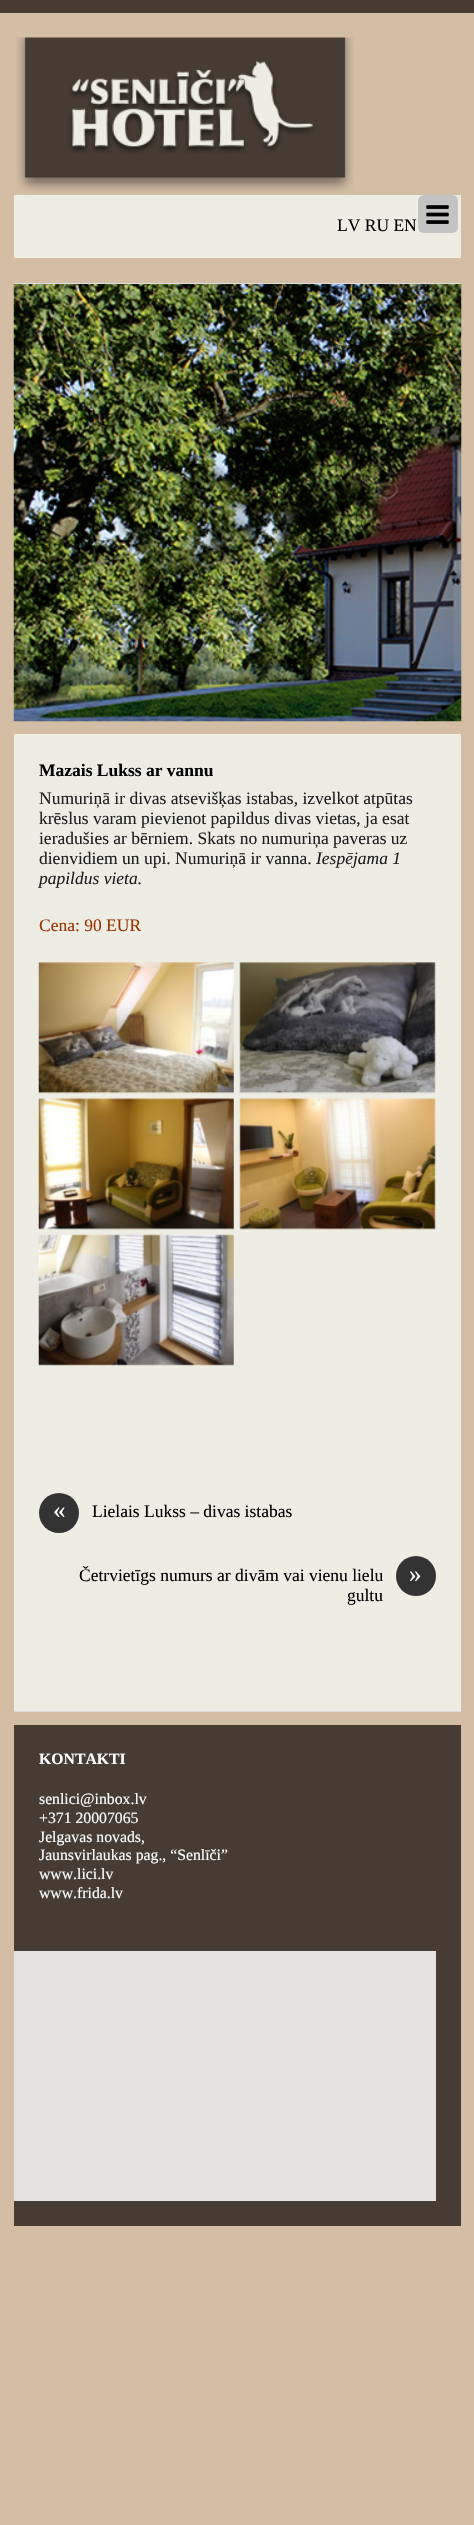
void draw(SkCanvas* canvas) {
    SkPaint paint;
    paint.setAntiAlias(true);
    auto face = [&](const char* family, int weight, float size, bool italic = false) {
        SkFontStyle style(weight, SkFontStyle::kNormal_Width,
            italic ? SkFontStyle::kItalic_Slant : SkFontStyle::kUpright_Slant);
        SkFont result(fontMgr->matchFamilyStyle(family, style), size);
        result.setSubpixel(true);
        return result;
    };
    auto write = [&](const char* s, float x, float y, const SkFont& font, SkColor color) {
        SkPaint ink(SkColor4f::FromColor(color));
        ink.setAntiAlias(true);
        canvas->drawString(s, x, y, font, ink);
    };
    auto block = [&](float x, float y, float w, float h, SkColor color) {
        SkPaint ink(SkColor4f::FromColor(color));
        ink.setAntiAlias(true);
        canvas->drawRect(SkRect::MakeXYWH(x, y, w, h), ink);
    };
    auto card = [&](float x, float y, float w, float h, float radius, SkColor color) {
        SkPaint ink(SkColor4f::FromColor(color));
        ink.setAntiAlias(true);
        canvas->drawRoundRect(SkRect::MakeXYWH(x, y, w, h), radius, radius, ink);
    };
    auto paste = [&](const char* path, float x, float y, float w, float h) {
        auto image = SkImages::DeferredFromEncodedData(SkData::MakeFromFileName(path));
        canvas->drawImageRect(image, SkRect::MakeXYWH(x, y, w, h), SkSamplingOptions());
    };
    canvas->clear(SkColorSetRGB(211, 189, 165));
    block(0, 0, 474, 13, SkColorSetRGB(70, 60, 51));
    paste("pic3.png", 13, 283, 449, 439);
    block(14, 283, 447, 1, SkColorSetRGB(221, 221, 221));
    paste("pic1.png", 16, 37, 338, 156);
    block(14, 195, 447, 63, SkColorSetRGB(238, 237, 228));
    auto kFont1 = face("Liberation Serif", 400, 17.5f);
    write("LV RU EN", 337, 231, kFont1, SK_ColorBLACK);
    card(418, 195, 40, 38, 6, SkColorSetRGB(195, 195, 195));
    paste("pic2.png", 426, 205, 23, 19);
    block(14, 734, 447, 977, SkColorSetRGB(238, 237, 228));
    auto kFont2 = face("Liberation Serif", 700, 17.5f);
    write("Mazais Lukss ar vannu", 39, 776, kFont2, SK_ColorBLACK);
    write("Numuriņā ir divas atsevišķas istabas, izvelkot atpūtas", 39, 804, kFont1, SkColorSetRGB(31, 31, 31));
    write("krēslus varam pievienot papildus divas vietas, ja esat", 39, 824, kFont1, SkColorSetRGB(31, 31, 31));
    write("ieradušies ar bērniem. Skats no numuriņa paveras uz", 39, 844, kFont1, SkColorSetRGB(31, 31, 31));
    write("dienvidiem un upi. Numuriņā ir vanna.", 39, 864, kFont1, SkColorSetRGB(31, 31, 31));
    auto kFont3 = face("Liberation Serif", 400, 17.5f, true);
    write("Iespējama 1", 316, 864, kFont3, SkColorSetRGB(31, 31, 31));
    write("papildus vieta.", 39, 884, kFont3, SkColorSetRGB(31, 31, 31));
    write("Cena: 90 EUR", 39, 931, kFont1, SkColorSetRGB(153, 51, 0));
    paste("pic4.png", 38, 962, 196, 132);
    paste("pic5.png", 239, 962, 197, 132);
    paste("pic6.png", 38, 1098, 196, 132);
    paste("pic7.png", 239, 1098, 197, 132);
    paste("pic8.png", 38, 1234, 196, 132);
    paint.setColor(SkColorSetRGB(51, 51, 51));
    canvas->drawCircle(59, 1513, 20, paint);
    auto kFont4 = face("Liberation Serif", 400, 25);
    write("«", 53, 1518, kFont4, SK_ColorWHITE);
    write("Lielais Lukss – divas istabas", 92, 1517, kFont1, SK_ColorBLACK);
    write("Četrvietīgs numurs ar divām vai vienu lielu", 79, 1581, kFont1, SK_ColorBLACK);
    canvas->drawCircle(416, 1576, 20, paint);
    write("»", 409, 1582, kFont4, SK_ColorWHITE);
    write("gultu", 347, 1601, kFont1, SK_ColorBLACK);
    block(14, 1711, 447, 1, SkColorSetRGB(221, 221, 221));
    block(14, 1725, 447, 501, SkColorSetRGB(70, 60, 51));
    auto kFont5 = face("Liberation Serif", 700, 15.75f);
    write("KONTAKTI", 39, 1764, kFont5, SK_ColorWHITE);
    auto kFont6 = face("Liberation Serif", 400, 15.75f);
    write("senlici@inbox.lv", 39, 1804, kFont6, SK_ColorWHITE);
    write("+371 20007065", 39, 1823, kFont6, SK_ColorWHITE);
    write("Jelgavas novads,", 39, 1842, kFont6, SK_ColorWHITE);
    write("Jaunsvirlaukas pag., “Senlīči”", 39, 1860, kFont6, SK_ColorWHITE);
    write("www.lici.lv", 39, 1879, kFont6, SK_ColorWHITE);
    write("www.frida.lv", 39, 1898, kFont6, SK_ColorWHITE);
    block(14, 1951, 422, 250, SkColorSetRGB(229, 227, 223));
}
